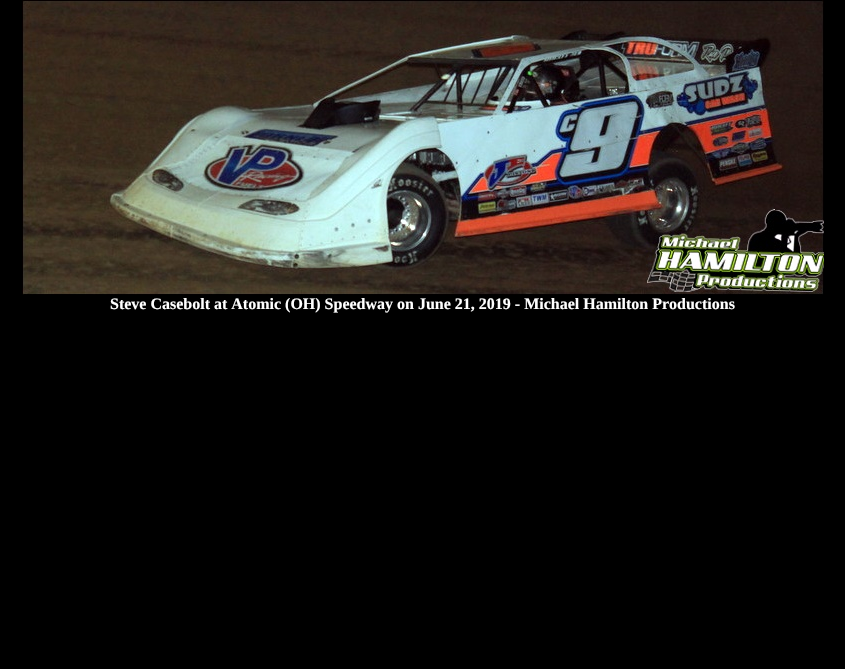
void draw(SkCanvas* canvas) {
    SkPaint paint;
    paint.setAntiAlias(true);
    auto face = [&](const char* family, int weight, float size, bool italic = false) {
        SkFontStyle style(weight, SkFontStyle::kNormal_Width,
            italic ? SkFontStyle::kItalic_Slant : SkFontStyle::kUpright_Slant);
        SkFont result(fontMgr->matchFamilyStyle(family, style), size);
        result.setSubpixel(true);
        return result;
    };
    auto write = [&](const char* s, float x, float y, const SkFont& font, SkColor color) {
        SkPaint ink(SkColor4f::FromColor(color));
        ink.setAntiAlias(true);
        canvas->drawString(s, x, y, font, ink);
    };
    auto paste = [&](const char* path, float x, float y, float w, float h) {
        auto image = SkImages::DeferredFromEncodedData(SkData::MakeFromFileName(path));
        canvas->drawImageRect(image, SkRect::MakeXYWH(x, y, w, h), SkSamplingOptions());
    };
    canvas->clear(SK_ColorBLACK);
    paste("pic1.png", 22, 0, 802, 295);
    auto kFont1 = face("Liberation Serif", 700, 16);
    write("Steve Casebolt at Atomic (OH) Speedway on June 21, 2019 - Michael Hamilton Productions", 110, 309, kFont1, SK_ColorWHITE);
}
